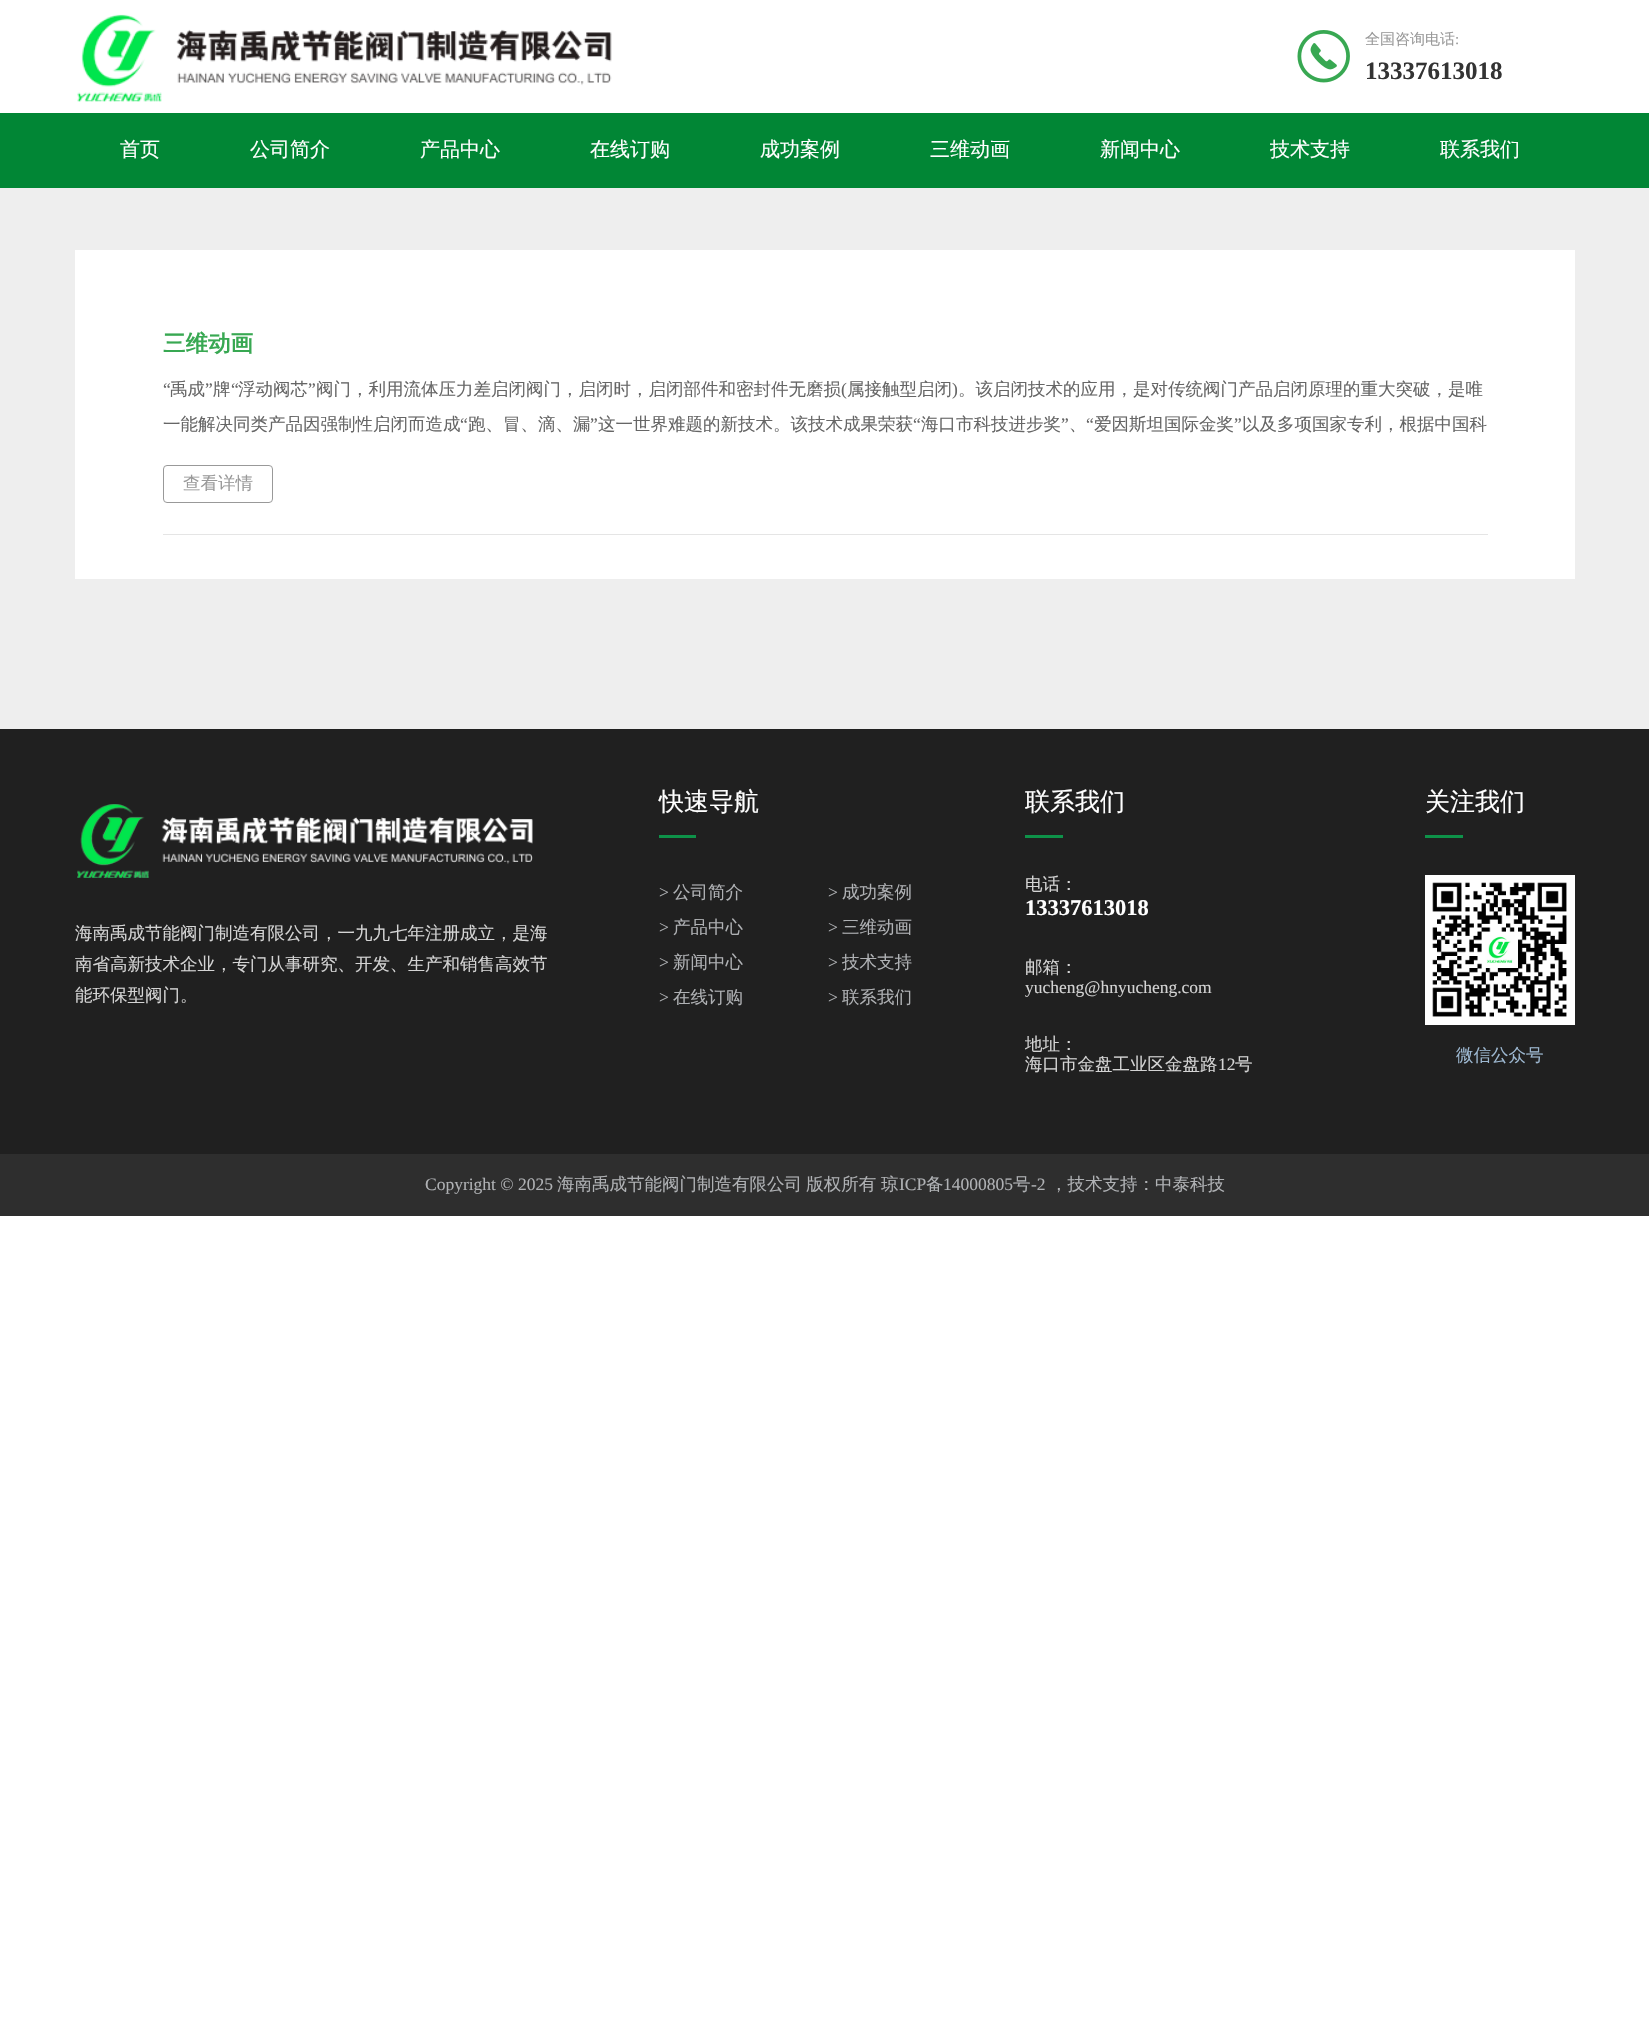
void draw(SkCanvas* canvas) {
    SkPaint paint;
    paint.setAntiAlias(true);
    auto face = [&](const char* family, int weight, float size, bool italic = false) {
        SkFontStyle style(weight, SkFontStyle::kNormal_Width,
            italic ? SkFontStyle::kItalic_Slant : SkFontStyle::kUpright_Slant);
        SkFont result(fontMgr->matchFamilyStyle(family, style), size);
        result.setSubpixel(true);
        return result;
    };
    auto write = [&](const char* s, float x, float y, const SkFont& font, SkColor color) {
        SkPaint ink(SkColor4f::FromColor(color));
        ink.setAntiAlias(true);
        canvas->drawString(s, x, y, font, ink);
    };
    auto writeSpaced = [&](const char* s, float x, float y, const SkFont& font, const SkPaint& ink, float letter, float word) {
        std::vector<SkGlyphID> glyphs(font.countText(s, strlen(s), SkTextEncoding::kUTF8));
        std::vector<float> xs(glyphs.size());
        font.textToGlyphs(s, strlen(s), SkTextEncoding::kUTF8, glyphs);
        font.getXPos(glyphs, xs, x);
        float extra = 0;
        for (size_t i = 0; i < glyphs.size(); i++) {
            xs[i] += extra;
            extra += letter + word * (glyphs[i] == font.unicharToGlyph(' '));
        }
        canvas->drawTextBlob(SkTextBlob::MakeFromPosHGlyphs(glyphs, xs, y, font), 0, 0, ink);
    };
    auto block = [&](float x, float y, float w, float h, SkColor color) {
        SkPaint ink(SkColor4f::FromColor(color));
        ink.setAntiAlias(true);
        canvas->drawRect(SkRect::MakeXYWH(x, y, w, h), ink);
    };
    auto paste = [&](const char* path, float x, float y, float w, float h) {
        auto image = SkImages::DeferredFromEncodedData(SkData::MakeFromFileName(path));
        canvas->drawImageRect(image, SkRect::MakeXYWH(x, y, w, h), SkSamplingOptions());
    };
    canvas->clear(SK_ColorWHITE);
    block(0, 188, 1649, 541, SkColorSetRGB(238, 238, 238));
    paste("pic1.png", 77, 14, 535, 88);
    paste("pic2.png", 1297, 30, 53, 53);
    auto kFont1 = face("WenQuanYi Zen Hei", 500, 15);
    write("全国咨询电话", 1365, 44, kFont1, SkColorSetRGB(153, 153, 153));
    auto kFont2 = face("Liberation Serif", 400, 15);
    write(":", 1455, 44, kFont2, SkColorSetRGB(153, 153, 153));
    auto kFont3 = face("Liberation Serif", 700, 25);
    write("13337613018", 1365, 79, kFont3, SkColorSetRGB(51, 51, 51));
    block(0, 113, 1649, 75, SkColorSetRGB(1, 134, 53));
    auto kFont4 = face("WenQuanYi Zen Hei", 500, 20);
    write("首页", 120, 156, kFont4, SK_ColorWHITE);
    write("公司简介", 250, 156, kFont4, SK_ColorWHITE);
    write("产品中心", 420, 156, kFont4, SK_ColorWHITE);
    write("在线订购", 590, 156, kFont4, SK_ColorWHITE);
    write("成功案例", 760, 156, kFont4, SK_ColorWHITE);
    write("三维动画", 930, 156, kFont4, SK_ColorWHITE);
    write("新闻中心", 1100, 156, kFont4, SK_ColorWHITE);
    write("技术支持", 1270, 156, kFont4, SK_ColorWHITE);
    write("联系我们", 1440, 156, kFont4, SK_ColorWHITE);
    block(75, 250, 1500, 329, SK_ColorWHITE);
    block(163, 534, 1325, 1, SkColorSetRGB(229, 229, 229));
    auto kFont5 = face("WenQuanYi Zen Hei", 700, 22.5f);
    write("三维动画", 163, 351, kFont5, SkColorSetRGB(56, 168, 82));
    auto kFont6 = face("Liberation Serif", 400, 17.5f);
    write("“", 163, 395, kFont6, SkColorSetRGB(102, 102, 102));
    auto kFont7 = face("WenQuanYi Zen Hei", 500, 17.5f);
    write("禹成", 170, 395, kFont7, SkColorSetRGB(102, 102, 102));
    write("”", 205, 395, kFont6, SkColorSetRGB(102, 102, 102));
    write("牌", 213, 395, kFont7, SkColorSetRGB(102, 102, 102));
    write("“", 231, 395, kFont6, SkColorSetRGB(102, 102, 102));
    write("浮动阀芯", 238, 395, kFont7, SkColorSetRGB(102, 102, 102));
    write("”", 308, 395, kFont6, SkColorSetRGB(102, 102, 102));
    write("阀门，利用流体压力差启闭阀门，启闭时，启闭部件和密封件无磨损", 316, 395, kFont7, SkColorSetRGB(102, 102, 102));
    write("(", 841, 395, kFont6, SkColorSetRGB(102, 102, 102));
    write("属接触型启闭", 847, 395, kFont7, SkColorSetRGB(102, 102, 102));
    write(")", 952, 395, kFont6, SkColorSetRGB(102, 102, 102));
    write("。该启闭技术的应用，是对传统阀门产品启闭原理的重大突破，是唯", 958, 395, kFont7, SkColorSetRGB(102, 102, 102));
    write("一能解决同类产品因强制性启闭而造成", 163, 430, kFont7, SkColorSetRGB(102, 102, 102));
    write("“", 460, 430, kFont6, SkColorSetRGB(102, 102, 102));
    write("跑、冒、滴、漏", 468, 430, kFont7, SkColorSetRGB(102, 102, 102));
    write("”", 590, 430, kFont6, SkColorSetRGB(102, 102, 102));
    write("这一世界难题的新技术。该技术成果荣获", 598, 430, kFont7, SkColorSetRGB(102, 102, 102));
    write("“", 913, 430, kFont6, SkColorSetRGB(102, 102, 102));
    write("海口市科技进步奖", 921, 430, kFont7, SkColorSetRGB(102, 102, 102));
    write("”", 1061, 430, kFont6, SkColorSetRGB(102, 102, 102));
    write("“", 1086, 430, kFont6, SkColorSetRGB(102, 102, 102));
    write("爱因斯坦国际金奖", 1094, 430, kFont7, SkColorSetRGB(102, 102, 102));
    write("”", 1234, 430, kFont6, SkColorSetRGB(102, 102, 102));
    write("以及多项国家专利，根据中国科", 1242, 430, kFont7, SkColorSetRGB(102, 102, 102));
    write("、", 1069, 430, kFont7, SkColorSetRGB(102, 102, 102));
    paint.setStyle(SkPaint::kStroke_Style);
    paint.setStrokeWidth(1);
    paint.setColor(SkColorSetRGB(153, 153, 153));
    canvas->drawRoundRect(SkRect::MakeXYWH(163.5f, 465.5f, 109, 37), 3.5f, 3.5f, paint);
    write("查看详情", 183, 489, kFont7, SkColorSetRGB(153, 153, 153));
    block(0, 729, 1649, 425, SkColorSetRGB(32, 32, 32));
    paste("pic3.png", 77, 804, 456, 74);
    write("海南禹成节能阀门制造有限公司，一九九七年注册成立，是海", 75, 939, kFont7, SkColorSetRGB(212, 212, 212));
    write("南省高新技术企业，专门从事研究、开发、生产和销售高效节", 75, 970, kFont7, SkColorSetRGB(212, 212, 212));
    write("能环保型阀门。", 75, 1001, kFont7, SkColorSetRGB(212, 212, 212));
    auto kFont8 = face("WenQuanYi Zen Hei", 500, 25);
    write("快速导航", 659, 810, kFont8, SK_ColorWHITE);
    block(659, 835, 37, 3, SkColorSetRGB(14, 146, 73));
    write(">", 659, 898, kFont6, SkColorSetRGB(175, 177, 180));
    write("公司简介", 673, 898, kFont7, SkColorSetRGB(175, 177, 180));
    write(">", 828, 898, kFont6, SkColorSetRGB(175, 177, 180));
    write("成功案例", 842, 898, kFont7, SkColorSetRGB(175, 177, 180));
    write(">", 659, 933, kFont6, SkColorSetRGB(175, 177, 180));
    write("产品中心", 673, 933, kFont7, SkColorSetRGB(175, 177, 180));
    write(">", 828, 933, kFont6, SkColorSetRGB(175, 177, 180));
    write("三维动画", 842, 933, kFont7, SkColorSetRGB(175, 177, 180));
    write(">", 659, 968, kFont6, SkColorSetRGB(175, 177, 180));
    write("新闻中心", 673, 968, kFont7, SkColorSetRGB(175, 177, 180));
    write(">", 828, 968, kFont6, SkColorSetRGB(175, 177, 180));
    write("技术支持", 842, 968, kFont7, SkColorSetRGB(175, 177, 180));
    write(">", 659, 1003, kFont6, SkColorSetRGB(175, 177, 180));
    write("在线订购", 673, 1003, kFont7, SkColorSetRGB(175, 177, 180));
    write(">", 828, 1003, kFont6, SkColorSetRGB(175, 177, 180));
    write("联系我们", 842, 1003, kFont7, SkColorSetRGB(175, 177, 180));
    write("联系我们", 1025, 810, kFont8, SK_ColorWHITE);
    block(1025, 835, 38, 3, SkColorSetRGB(14, 146, 73));
    write("电话：", 1025, 890, kFont7, SkColorSetRGB(212, 212, 212));
    auto kFont9 = face("Liberation Serif", 700, 22.5f);
    write("13337613018", 1025, 915, kFont9, SK_ColorWHITE);
    write("邮箱：", 1025, 973, kFont7, SkColorSetRGB(212, 212, 212));
    write("yucheng@hnyucheng.com", 1025, 993, kFont6, SkColorSetRGB(212, 212, 212));
    write("地址：", 1025, 1050, kFont7, SkColorSetRGB(212, 212, 212));
    write("海口市金盘工业区金盘路", 1025, 1070, kFont7, SkColorSetRGB(212, 212, 212));
    write("12", 1218, 1070, kFont6, SkColorSetRGB(212, 212, 212));
    write("号", 1235, 1070, kFont7, SkColorSetRGB(212, 212, 212));
    write("关注我们", 1425, 810, kFont8, SK_ColorWHITE);
    block(1425, 835, 38, 3, SkColorSetRGB(14, 146, 73));
    paste("pic4.png", 1425, 875, 150, 150);
    write("微信公众号", 1456, 1061, kFont7, SkColorSetRGB(157, 184, 209));
    block(0, 1154, 1649, 62, SkColorSetRGB(46, 46, 46));
    write("Copyright © 2025", 425, 1190, kFont6, SkColorSetRGB(175, 177, 180));
    paint.setStyle(SkPaint::kFill_Style);
    paint.setColor(SkColorSetRGB(175, 177, 180));
    writeSpaced("海南禹成节能阀门制造有限公司 版权所有", 557, 1190, kFont7, paint, 0, -1);
    write("琼", 881, 1190, kFont7, SkColorSetRGB(175, 177, 180));
    write("ICP", 899, 1190, kFont6, SkColorSetRGB(175, 177, 180));
    write("备", 926, 1190, kFont7, SkColorSetRGB(175, 177, 180));
    write("14000805", 943, 1190, kFont6, SkColorSetRGB(175, 177, 180));
    write("号", 1013, 1190, kFont7, SkColorSetRGB(175, 177, 180));
    write("-2", 1031, 1190, kFont6, SkColorSetRGB(175, 177, 180));
    write("，技术支持：中泰科技", 1050, 1190, kFont7, SkColorSetRGB(175, 177, 180));
}
